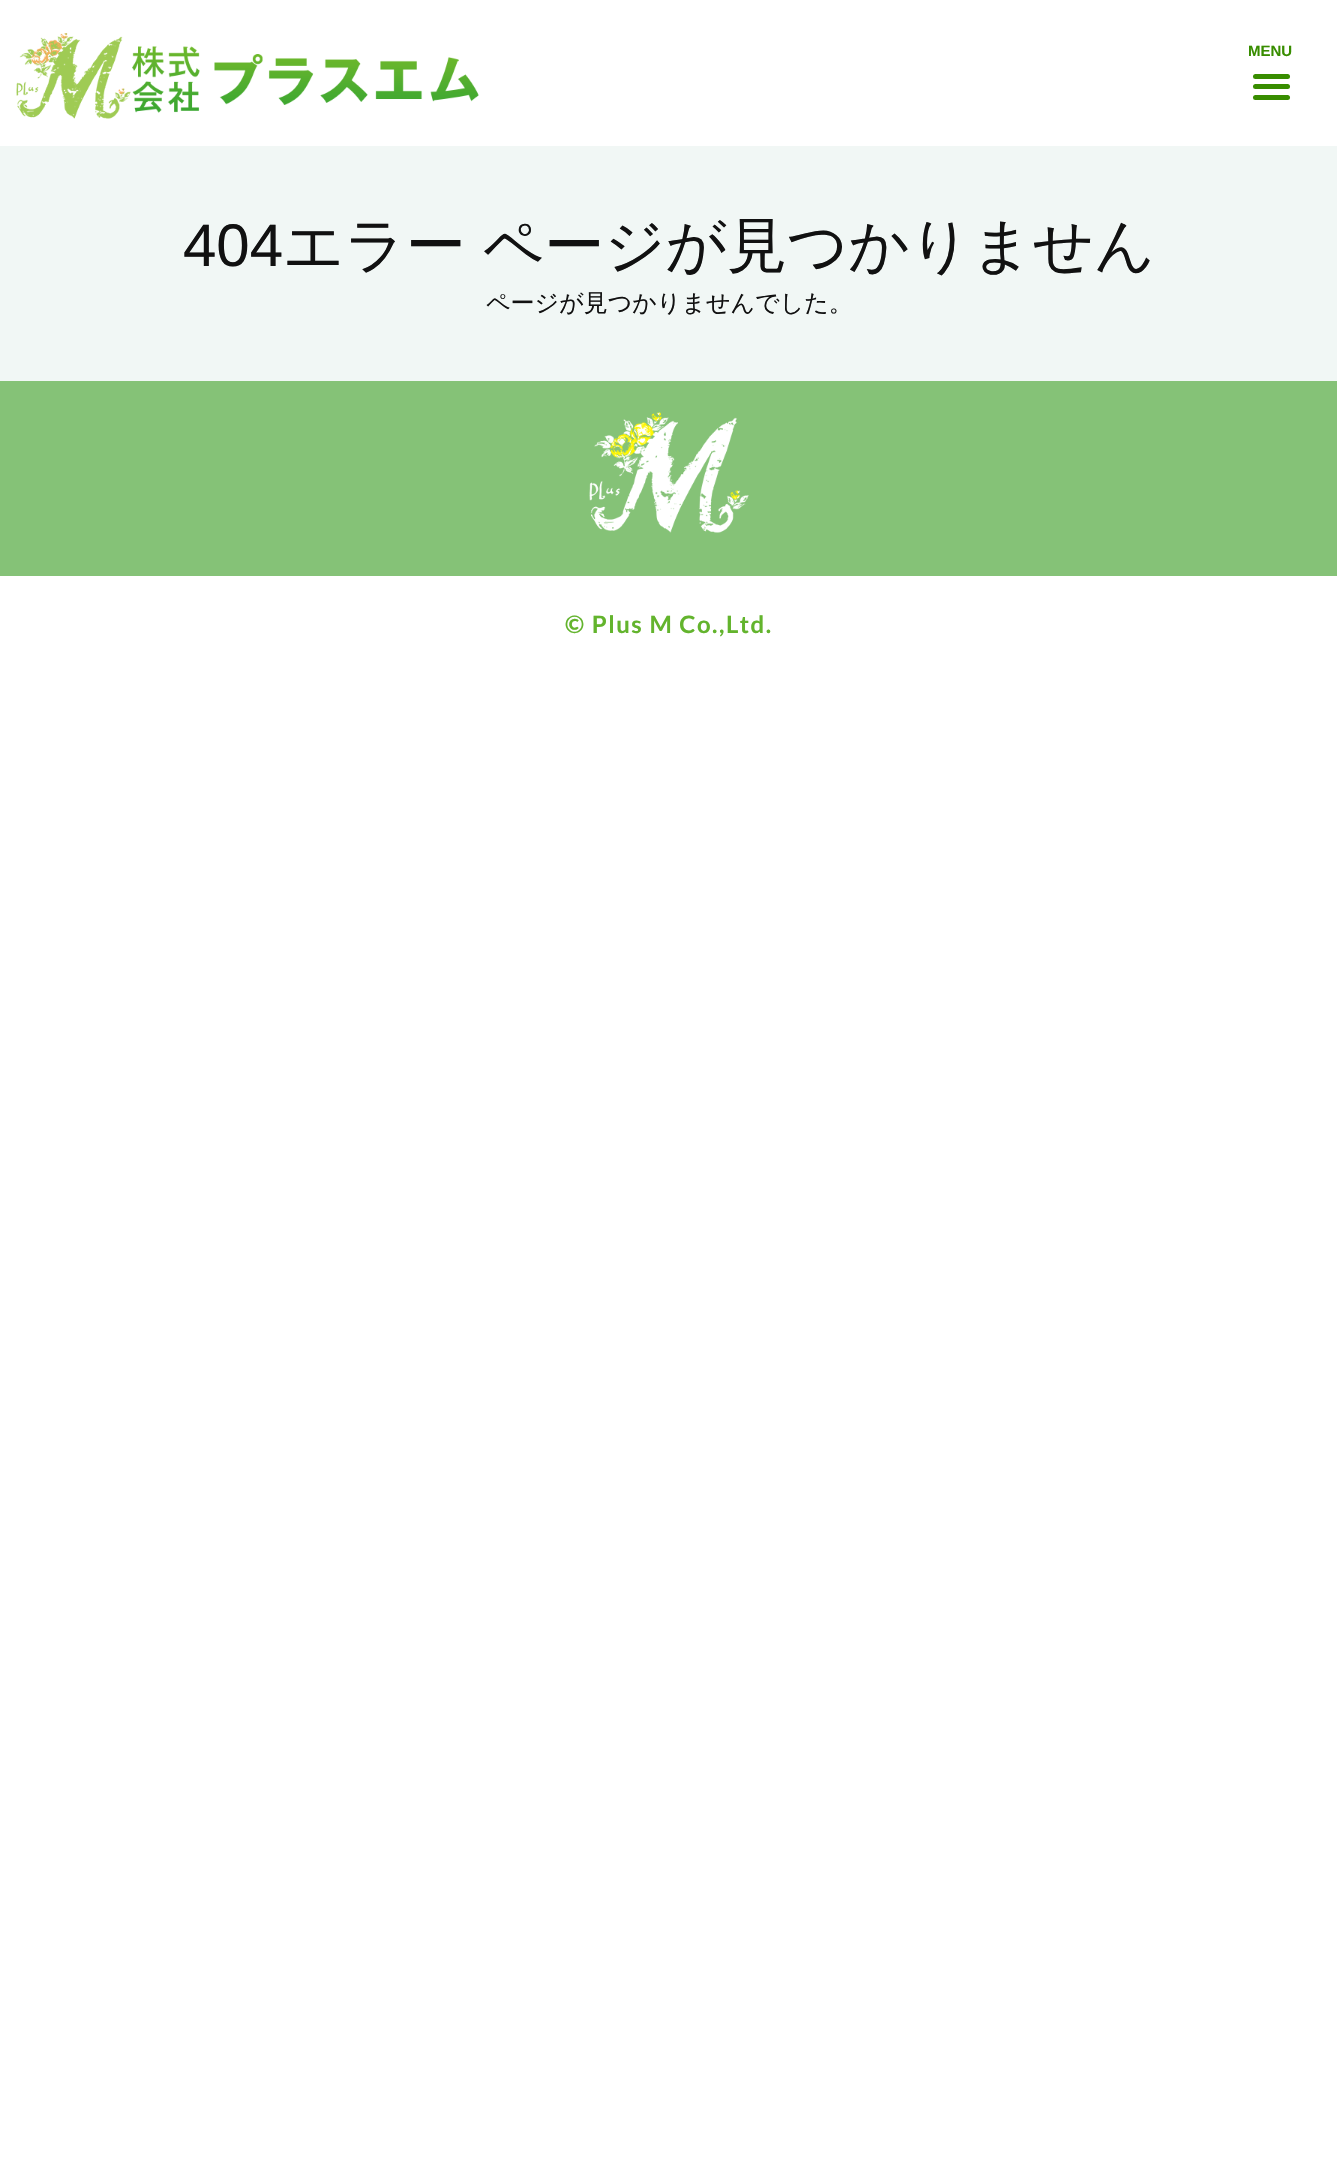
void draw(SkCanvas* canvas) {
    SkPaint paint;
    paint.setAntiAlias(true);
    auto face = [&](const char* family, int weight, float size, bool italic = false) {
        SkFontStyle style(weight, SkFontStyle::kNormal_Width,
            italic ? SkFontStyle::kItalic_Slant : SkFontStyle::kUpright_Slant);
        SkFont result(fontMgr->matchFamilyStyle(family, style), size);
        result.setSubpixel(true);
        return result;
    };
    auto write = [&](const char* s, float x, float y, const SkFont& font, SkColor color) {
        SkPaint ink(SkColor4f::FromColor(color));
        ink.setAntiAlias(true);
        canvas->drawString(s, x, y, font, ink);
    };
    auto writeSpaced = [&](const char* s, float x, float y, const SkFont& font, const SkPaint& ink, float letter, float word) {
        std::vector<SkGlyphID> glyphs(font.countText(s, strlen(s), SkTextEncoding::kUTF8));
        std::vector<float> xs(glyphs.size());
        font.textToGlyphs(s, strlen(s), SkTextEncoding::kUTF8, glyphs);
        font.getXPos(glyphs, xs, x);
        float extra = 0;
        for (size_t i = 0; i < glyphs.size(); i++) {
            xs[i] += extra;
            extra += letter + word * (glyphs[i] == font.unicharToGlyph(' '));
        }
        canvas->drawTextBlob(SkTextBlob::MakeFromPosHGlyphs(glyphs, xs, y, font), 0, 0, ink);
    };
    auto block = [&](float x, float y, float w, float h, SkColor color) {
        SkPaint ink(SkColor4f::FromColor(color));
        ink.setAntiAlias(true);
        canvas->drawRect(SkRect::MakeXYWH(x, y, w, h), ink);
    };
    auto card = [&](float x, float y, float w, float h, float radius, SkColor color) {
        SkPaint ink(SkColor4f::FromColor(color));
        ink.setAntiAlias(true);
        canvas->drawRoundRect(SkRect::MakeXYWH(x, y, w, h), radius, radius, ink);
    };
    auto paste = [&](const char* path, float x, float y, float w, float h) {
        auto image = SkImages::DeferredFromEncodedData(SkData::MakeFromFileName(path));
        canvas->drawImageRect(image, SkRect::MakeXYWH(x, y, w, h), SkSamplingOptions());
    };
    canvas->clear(SK_ColorWHITE);
    auto kFont1 = face("Liberation Sans", 700, 15);
    write("MENU", 1248, 56, kFont1, SkColorSetRGB(56, 141, 0));
    card(1253, 84, 37, 5, 2.5f, SkColorSetRGB(56, 141, 0));
    card(1253, 74, 37, 5, 2.5f, SkColorSetRGB(56, 141, 0));
    card(1253, 95, 37, 5, 2.5f, SkColorSetRGB(56, 141, 0));
    paste("pic1.png", 16, 33, 463, 86);
    block(0, 146, 1337, 235, SkColorSetRGB(241, 247, 245));
    auto kFont2 = face("Liberation Sans", 400, 60);
    write("404", 183, 266, kFont2, SkColorSetRGB(17, 17, 17));
    auto kFont3 = face("WenQuanYi Zen Hei", 500, 60);
    paint.setColor(SkColorSetRGB(17, 17, 17));
    writeSpaced("エラー ページが見つかりません", 283, 266, kFont3, paint, 0, -1);
    auto kFont4 = face("WenQuanYi Zen Hei", 500, 24);
    write("ページが見つかりませんでした。", 486, 311, kFont4, SkColorSetRGB(17, 17, 17));
    block(0, 381, 1337, 195, SkColorSetRGB(133, 194, 119));
    paste("pic2.png", 589, 412, 160, 121);
    auto kFont5 = face("Lato", 700, 24);
    paint.setColor(SkColorSetRGB(99, 180, 45));
    writeSpaced("© Plus M Co.,Ltd.", 565, 633, kFont5, paint, 1.5f, 0);
}
